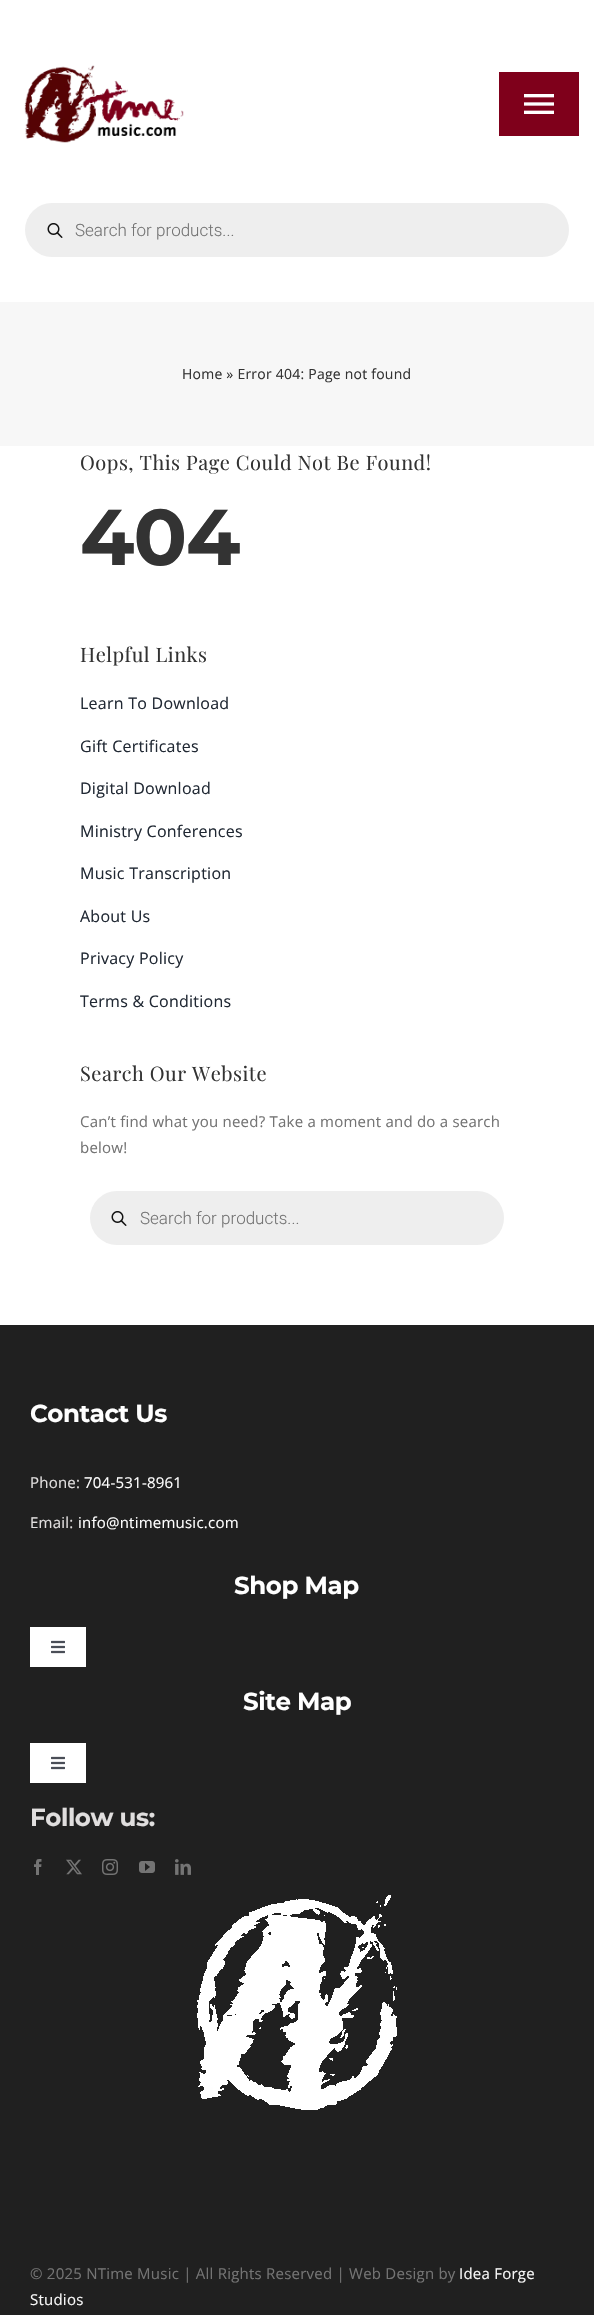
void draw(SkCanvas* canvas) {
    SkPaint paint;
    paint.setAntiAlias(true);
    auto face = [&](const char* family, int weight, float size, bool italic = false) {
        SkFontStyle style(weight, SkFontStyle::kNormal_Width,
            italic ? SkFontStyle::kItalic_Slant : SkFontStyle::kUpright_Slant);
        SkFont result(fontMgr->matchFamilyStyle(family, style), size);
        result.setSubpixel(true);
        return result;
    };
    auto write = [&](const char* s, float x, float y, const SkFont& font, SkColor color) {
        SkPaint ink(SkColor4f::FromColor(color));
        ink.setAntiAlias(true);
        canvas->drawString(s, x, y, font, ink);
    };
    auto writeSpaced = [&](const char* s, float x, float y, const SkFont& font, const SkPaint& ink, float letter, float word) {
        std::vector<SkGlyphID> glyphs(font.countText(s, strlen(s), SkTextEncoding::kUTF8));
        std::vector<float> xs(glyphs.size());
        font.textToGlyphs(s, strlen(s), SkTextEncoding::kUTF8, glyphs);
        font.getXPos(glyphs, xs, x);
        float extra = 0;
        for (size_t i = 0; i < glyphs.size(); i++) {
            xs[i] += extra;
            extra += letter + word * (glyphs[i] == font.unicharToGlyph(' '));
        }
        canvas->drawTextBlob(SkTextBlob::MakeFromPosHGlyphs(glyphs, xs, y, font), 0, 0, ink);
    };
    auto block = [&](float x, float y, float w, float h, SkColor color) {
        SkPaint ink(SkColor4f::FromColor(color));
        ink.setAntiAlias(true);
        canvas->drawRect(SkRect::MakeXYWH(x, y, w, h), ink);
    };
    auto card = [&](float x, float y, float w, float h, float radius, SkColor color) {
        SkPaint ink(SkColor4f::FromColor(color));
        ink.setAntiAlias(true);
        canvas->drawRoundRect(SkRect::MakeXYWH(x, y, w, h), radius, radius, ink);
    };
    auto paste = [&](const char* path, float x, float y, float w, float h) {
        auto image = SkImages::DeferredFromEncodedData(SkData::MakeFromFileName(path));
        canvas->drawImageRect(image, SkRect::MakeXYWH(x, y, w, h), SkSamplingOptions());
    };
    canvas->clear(SK_ColorWHITE);
    paste("pic1.png", 24, 65, 160, 78);
    block(499, 72, 80, 64, SkColorSetRGB(127, 0, 27));
    paste("pic2.png", 524, 94, 30, 20);
    card(25, 203, 544, 54, 27, SkColorSetRGB(238, 238, 238));
    paste("pic3.png", 47, 223, 16, 15);
    auto kFont1 = face("Roboto", 300, 17);
    write("Search for products...", 75, 236, kFont1, SkColorSetRGB(116, 116, 116));
    block(0, 302, 594, 144, SkColorSetRGB(247, 247, 247));
    auto kFont2 = face("Open Sans", 400, 14);
    paint.setColor(SkColorSetRGB(51, 51, 51));
    writeSpaced("Home » Error 404: Page not found", 182, 379, kFont2, paint, 0.23f, 0);
    auto kFont3 = face("Playfair Display", 400, 20);
    writeSpaced("Oops, This Page Could Not Be Found!", 80, 470, kFont3, paint, 0.5f, 0);
    auto kFont4 = face("Montserrat", 700, 79);
    writeSpaced("404", 80, 565, kFont4, paint, -1, 0);
    writeSpaced("Helpful Links", 80, 662, kFont3, paint, 0.5f, 0);
    auto kFont5 = face("Open Sans", 400, 16);
    paint.setColor(SkColorSetRGB(33, 41, 52));
    writeSpaced("Learn To Download", 80, 709, kFont5, paint, 0.25f, 0);
    writeSpaced("Gift Certificates", 80, 752, kFont5, paint, 0.25f, 0);
    writeSpaced("Digital Download", 80, 794, kFont5, paint, 0.25f, 0);
    writeSpaced("Ministry Conferences", 80, 837, kFont5, paint, 0.25f, 0);
    writeSpaced("Music Transcription", 80, 879, kFont5, paint, 0.25f, 0);
    writeSpaced("About Us", 80, 922, kFont5, paint, 0.25f, 0);
    writeSpaced("Privacy Policy", 80, 964, kFont5, paint, 0.25f, 0);
    writeSpaced("Terms & Conditions", 80, 1007, kFont5, paint, 0.25f, 0);
    paint.setColor(SkColorSetRGB(51, 51, 51));
    writeSpaced("Search Our Website", 80, 1081, kFont3, paint, 0.5f, 0);
    auto kFont6 = face("Open Sans", 400, 15);
    paint.setColor(SkColorSetRGB(116, 116, 116));
    writeSpaced("Can’t find what you need? Take a moment and do a search", 80, 1127, kFont6, paint, 0.23f, 0);
    writeSpaced("below!", 80, 1153, kFont6, paint, 0.23f, 0);
    card(90, 1191, 414, 54, 27, SkColorSetRGB(238, 238, 238));
    paste("pic3.png", 111, 1211, 16, 15);
    write("Search for products...", 140, 1224, kFont1, SkColorSetRGB(116, 116, 116));
    block(0, 1325, 594, 990, SkColorSetRGB(32, 32, 32));
    auto kFont7 = face("Montserrat", 700, 24.5f);
    paint.setColor(SK_ColorWHITE);
    writeSpaced("Contact Us", 30, 1422, kFont7, paint, -0.4f, 0);
    paint.setColor(SkColorSetRGB(224, 222, 222));
    writeSpaced("Phone:", 30, 1488, kFont6, paint, 0.23f, 0);
    paint.setColor(SK_ColorWHITE);
    writeSpaced("704-531-8961", 84, 1488, kFont6, paint, 0.23f, 0);
    paint.setColor(SkColorSetRGB(224, 222, 222));
    writeSpaced("Email:", 30, 1528, kFont6, paint, 0.23f, 0);
    paint.setColor(SK_ColorWHITE);
    writeSpaced("info@ntimemusic.com", 78, 1528, kFont6, paint, 0.23f, 0);
    writeSpaced("Shop Map", 234, 1594, kFont7, paint, -0.4f, 0);
    block(30, 1627, 56, 40, SK_ColorWHITE);
    paste("pic4.png", 51, 1640, 14, 14);
    writeSpaced("Site Map", 243, 1710, kFont7, paint, -0.4f, 0);
    block(30, 1743, 56, 40, SK_ColorWHITE);
    paste("pic4.png", 51, 1756, 14, 14);
    paint.setColor(SkColorSetRGB(224, 222, 222));
    writeSpaced("Follow us:", 30, 1826, kFont7, paint, -0.4f, 0);
    paste("pic5.png", 34, 1859, 8, 16);
    paste("pic6.png", 66, 1859, 16, 16);
    paste("pic7.png", 102, 1859, 16, 16);
    paste("pic8.png", 139, 1861, 16, 12);
    paste("pic9.png", 175, 1859, 16, 16);
    paste("pic10.png", 197, 1895, 200, 215);
    paint.setColor(SkColorSetRGB(116, 116, 116));
    writeSpaced("© 2025 NTime Music | All Rights Reserved | Web Design by", 30, 2279, kFont6, paint, 0.23f, 0);
    paint.setColor(SkColorSetRGB(247, 247, 247));
    writeSpaced("Idea Forge", 459, 2279, kFont6, paint, 0.23f, 0);
    writeSpaced("Studios", 30, 2305, kFont6, paint, 0.23f, 0);
}
